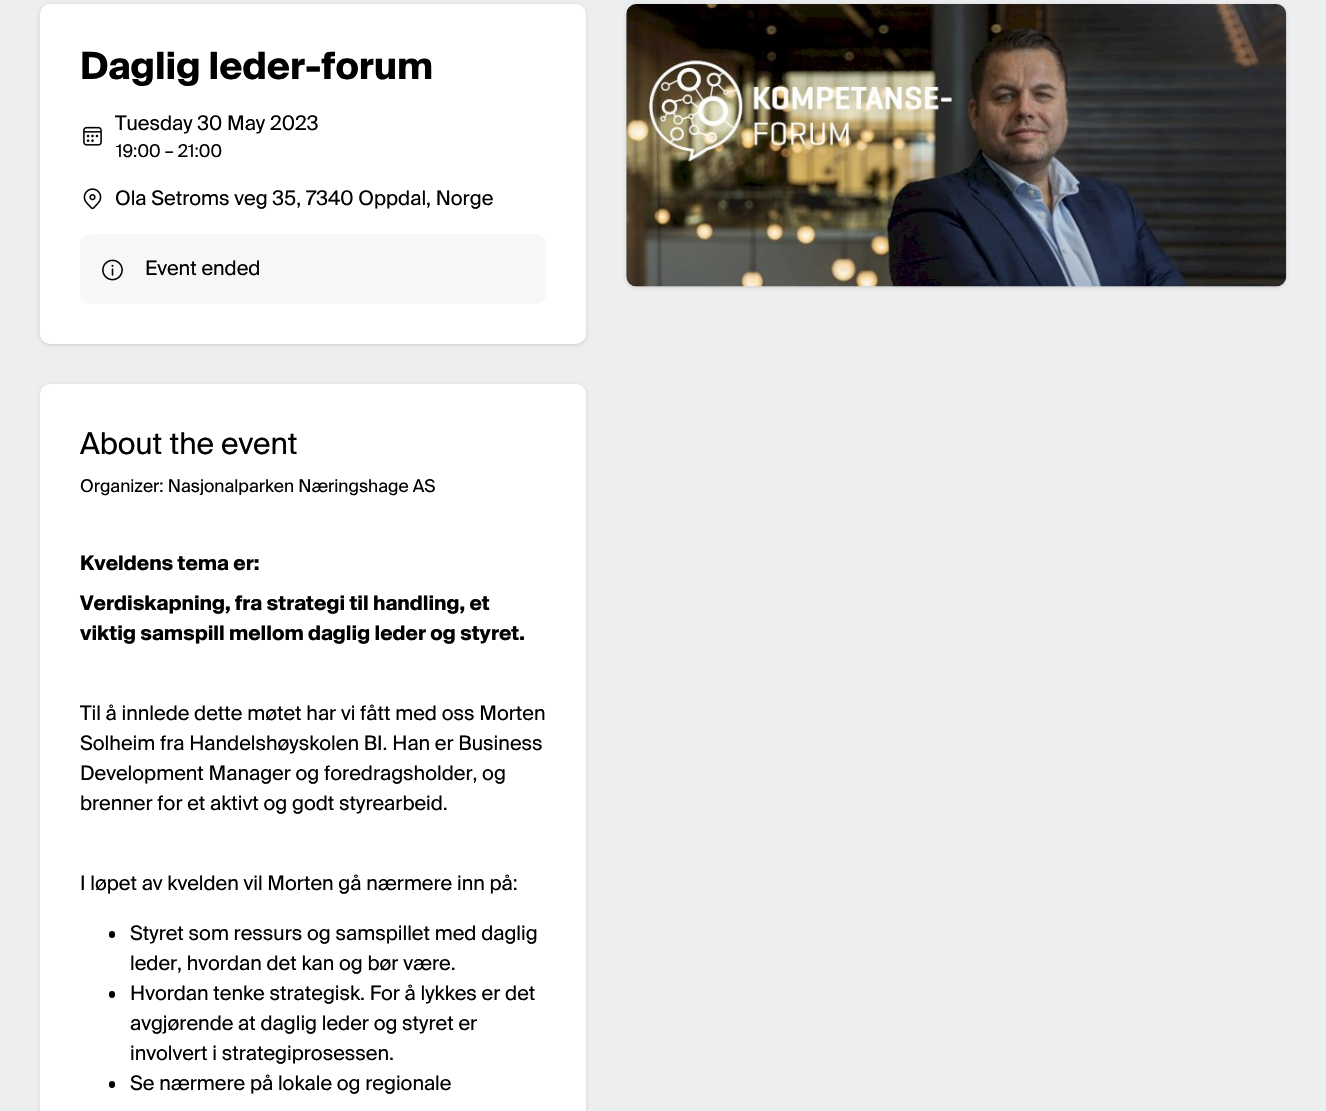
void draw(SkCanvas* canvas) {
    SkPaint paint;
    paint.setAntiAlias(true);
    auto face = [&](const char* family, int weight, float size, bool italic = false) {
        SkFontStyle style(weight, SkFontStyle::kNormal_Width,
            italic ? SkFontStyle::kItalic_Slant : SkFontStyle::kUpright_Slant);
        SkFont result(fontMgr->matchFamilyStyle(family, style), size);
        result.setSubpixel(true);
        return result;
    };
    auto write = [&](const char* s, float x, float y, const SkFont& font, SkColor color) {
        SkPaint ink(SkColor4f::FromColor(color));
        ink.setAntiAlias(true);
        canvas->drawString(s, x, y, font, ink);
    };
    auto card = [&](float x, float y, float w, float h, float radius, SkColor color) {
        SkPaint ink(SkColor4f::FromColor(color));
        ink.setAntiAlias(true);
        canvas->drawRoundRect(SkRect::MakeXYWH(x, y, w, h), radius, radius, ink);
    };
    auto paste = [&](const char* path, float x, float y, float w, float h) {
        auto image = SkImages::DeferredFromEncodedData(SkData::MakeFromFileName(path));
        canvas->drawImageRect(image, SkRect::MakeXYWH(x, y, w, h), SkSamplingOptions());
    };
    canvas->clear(SkColorSetRGB(237, 238, 239));
    paint.setColor(SkColorSetARGB(26, 0, 0, 0));
    paint.setMaskFilter(SkMaskFilter::MakeBlur(kNormal_SkBlurStyle, 1));
    canvas->drawRoundRect(SkRect::MakeXYWH(41, 6, 544, 338), 9, 9, paint);
    paint.setMaskFilter(nullptr);
    paint.setMaskFilter(SkMaskFilter::MakeBlur(kNormal_SkBlurStyle, 2));
    canvas->drawRoundRect(SkRect::MakeXYWH(40, 5, 546, 340), 10, 10, paint);
    paint.setMaskFilter(nullptr);
    card(40, 4, 546, 340, 10, SK_ColorWHITE);
    auto kFont1 = face("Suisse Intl", 700, 37.5f);
    write("Daglig leder-forum", 80, 79, kFont1, SK_ColorBLACK);
    paste("pic1.png", 83, 126, 19, 20);
    auto kFont2 = face("Suisse Intl", 400, 20);
    write("Tuesday 30 May 2023", 115, 130, kFont2, SK_ColorBLACK);
    auto kFont3 = face("Suisse Intl", 400, 17.5f);
    write("19:00 – 21:00", 116, 157, kFont3, SK_ColorBLACK);
    paste("pic2.png", 83, 188, 19, 22);
    write("Ola Setroms veg 35, 7340 Oppdal, Norge", 115, 205, kFont2, SK_ColorBLACK);
    card(80, 234, 466, 70, 10, SkColorSetRGB(246, 247, 247));
    paste("pic3.png", 102, 259, 21, 22);
    write("Event ended", 145, 275, kFont2, SK_ColorBLACK);
    paint.setMaskFilter(SkMaskFilter::MakeBlur(kNormal_SkBlurStyle, 2));
    canvas->drawRoundRect(SkRect::MakeXYWH(40, 385, 546, 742), 10, 10, paint);
    paint.setMaskFilter(nullptr);
    card(40, 384, 546, 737, 10, SK_ColorWHITE);
    auto kFont4 = face("Suisse Intl", 400, 30);
    write("About the event", 80, 454, kFont4, SK_ColorBLACK);
    write("Organizer: Nasjonalparken Næringshage AS", 80, 492, kFont3, SK_ColorBLACK);
    auto kFont5 = face("Suisse Intl", 700, 20);
    write("Kveldens tema er:", 80, 570, kFont5, SK_ColorBLACK);
    write("Verdiskapning, fra strategi til handling, et", 80, 610, kFont5, SK_ColorBLACK);
    write("viktig samspill mellom daglig leder og styret.", 80, 640, kFont5, SK_ColorBLACK);
    write("Til å innlede dette møtet har vi fått med oss Morten", 80, 720, kFont2, SK_ColorBLACK);
    write("Solheim fra Handelshøyskolen BI. Han er Business", 80, 750, kFont2, SK_ColorBLACK);
    write("Development Manager og foredragsholder, og", 80, 780, kFont2, SK_ColorBLACK);
    write("brenner for et aktivt og godt styrearbeid.", 80, 810, kFont2, SK_ColorBLACK);
    write("I løpet av kvelden vil Morten gå nærmere inn på:", 80, 890, kFont2, SK_ColorBLACK);
    card(109, 931, 6, 7, 3, SK_ColorBLACK);
    write("Styret som ressurs og samspillet med daglig", 130, 940, kFont2, SK_ColorBLACK);
    write("leder, hvordan det kan og bør være.", 130, 970, kFont2, SK_ColorBLACK);
    card(109, 991, 6, 7, 3, SK_ColorBLACK);
    write("Hvordan tenke strategisk. For å lykkes er det", 130, 1000, kFont2, SK_ColorBLACK);
    write("avgjørende at daglig leder og styret er", 130, 1030, kFont2, SK_ColorBLACK);
    write("involvert i strategiprosessen.", 130, 1060, kFont2, SK_ColorBLACK);
    card(109, 1081, 6, 7, 3, SK_ColorBLACK);
    write("Se nærmere på lokale og regionale", 130, 1090, kFont2, SK_ColorBLACK);
    paint.setMaskFilter(SkMaskFilter::MakeBlur(kNormal_SkBlurStyle, 1));
    canvas->drawRoundRect(SkRect::MakeXYWH(628, 6, 657, 280), 9, 9, paint);
    paint.setMaskFilter(nullptr);
    paint.setMaskFilter(SkMaskFilter::MakeBlur(kNormal_SkBlurStyle, 2));
    canvas->drawRoundRect(SkRect::MakeXYWH(626, 5, 660, 283), 10, 10, paint);
    paint.setMaskFilter(nullptr);
    paste("pic4.png", 626, 4, 661, 283);
}
